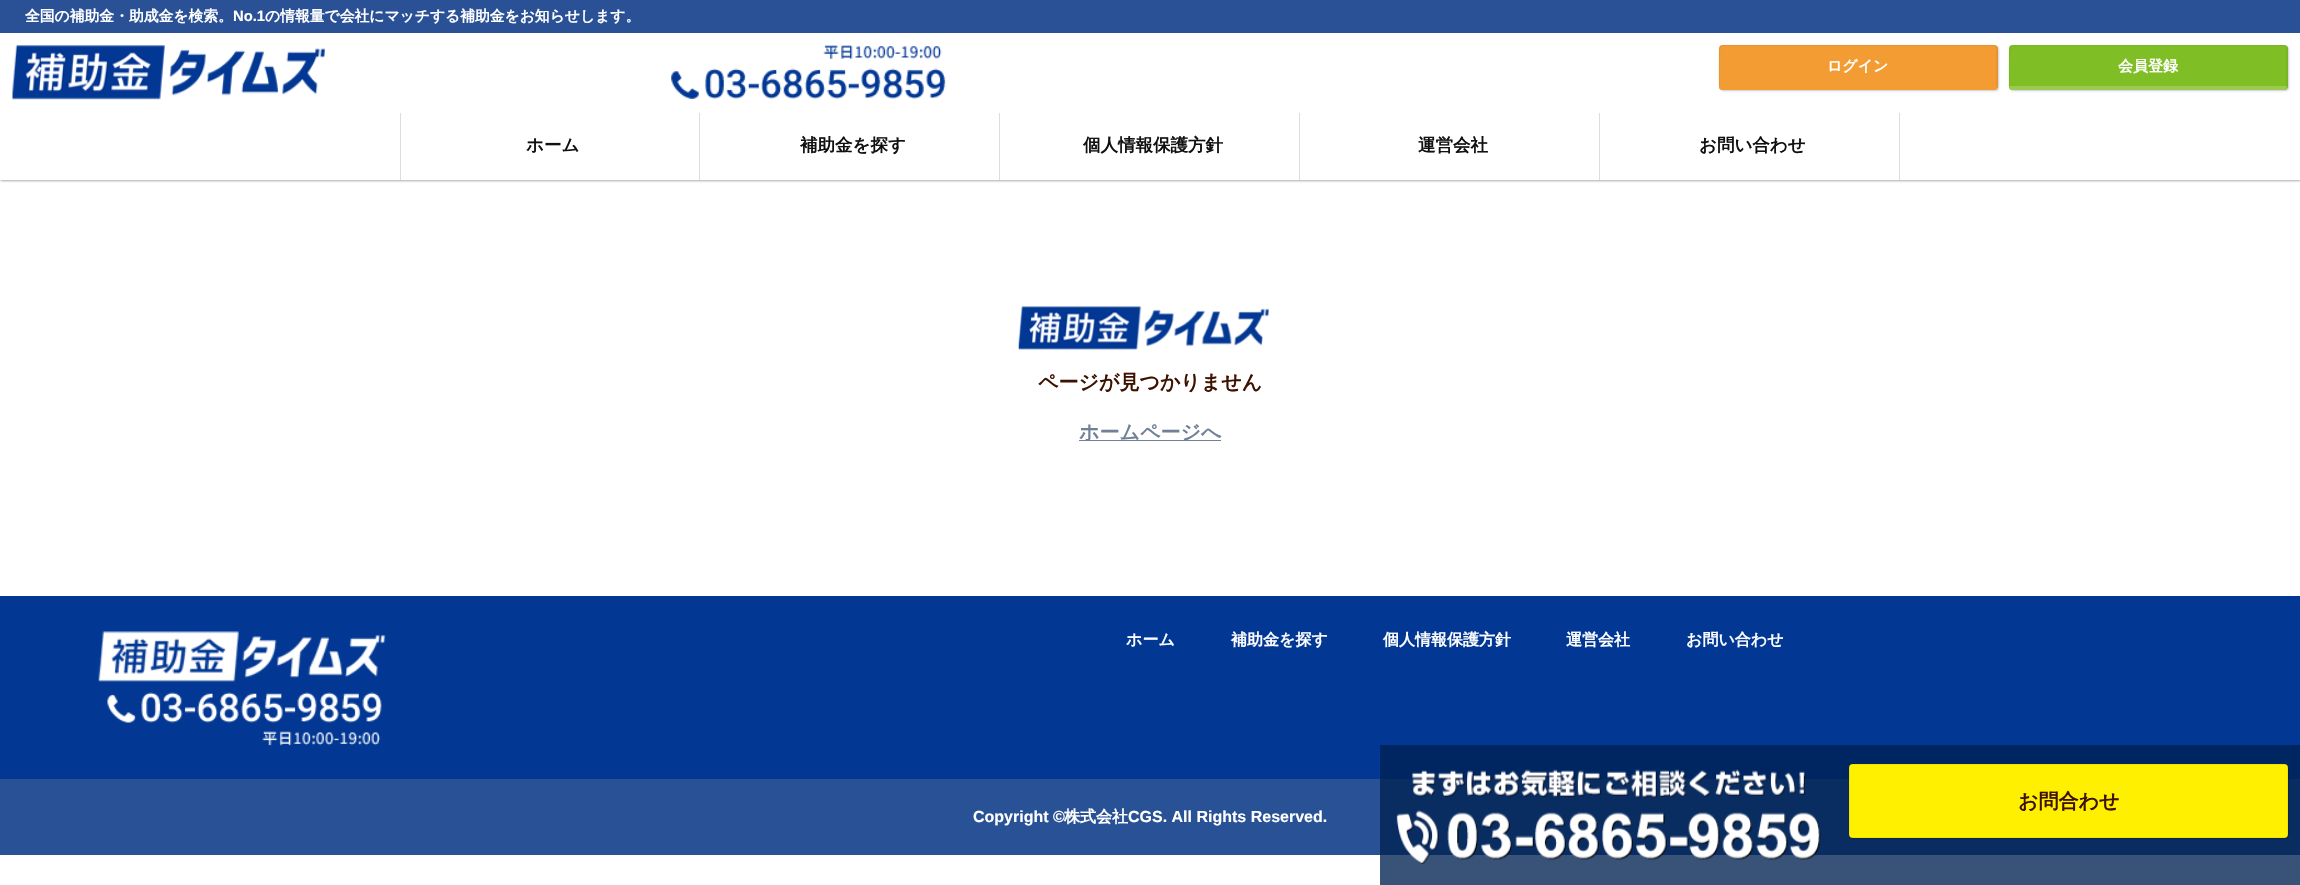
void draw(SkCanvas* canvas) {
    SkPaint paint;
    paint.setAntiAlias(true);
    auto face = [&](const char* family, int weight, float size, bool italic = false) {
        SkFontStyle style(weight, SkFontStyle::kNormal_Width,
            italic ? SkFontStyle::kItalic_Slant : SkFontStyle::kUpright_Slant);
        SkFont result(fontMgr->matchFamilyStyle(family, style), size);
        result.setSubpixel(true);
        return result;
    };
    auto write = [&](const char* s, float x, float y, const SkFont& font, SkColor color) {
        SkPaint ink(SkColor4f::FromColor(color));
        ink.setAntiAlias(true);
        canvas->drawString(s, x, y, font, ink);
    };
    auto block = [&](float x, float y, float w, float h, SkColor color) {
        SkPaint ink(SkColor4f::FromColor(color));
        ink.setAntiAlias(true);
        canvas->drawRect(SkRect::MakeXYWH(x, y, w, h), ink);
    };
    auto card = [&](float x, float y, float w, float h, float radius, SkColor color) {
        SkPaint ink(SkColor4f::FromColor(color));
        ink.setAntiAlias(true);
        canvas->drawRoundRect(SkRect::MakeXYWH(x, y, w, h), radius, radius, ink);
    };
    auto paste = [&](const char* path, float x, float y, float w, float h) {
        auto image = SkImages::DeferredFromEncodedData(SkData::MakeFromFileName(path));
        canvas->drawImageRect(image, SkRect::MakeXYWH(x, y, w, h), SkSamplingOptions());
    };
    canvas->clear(SK_ColorWHITE);
    block(1380, 855, 920, 30, SkColorSetRGB(56, 82, 120));
    canvas->save();
    canvas->clipRect(SkRect::MakeXYWH(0, 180, 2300, 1));
    paint.setColor(SkColorSetARGB(15, 0, 0, 0));
    paint.setMaskFilter(SkMaskFilter::MakeBlur(kNormal_SkBlurStyle, 1));
    canvas->drawRect(SkRect::MakeXYWH(0, 1, 2300, 180), paint);
    paint.setMaskFilter(nullptr);
    canvas->restore();
    canvas->save();
    canvas->clipRect(SkRect::MakeXYWH(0, 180, 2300, 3));
    paint.setColor(SkColorSetARGB(26, 0, 0, 0));
    paint.setMaskFilter(SkMaskFilter::MakeBlur(kNormal_SkBlurStyle, 2));
    canvas->drawRect(SkRect::MakeXYWH(0, 1, 2300, 180), paint);
    paint.setMaskFilter(nullptr);
    canvas->restore();
    canvas->save();
    canvas->clipRect(SkRect::MakeXYWH(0, 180, 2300, 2));
    paint.setColor(SkColorSetARGB(51, 0, 0, 0));
    paint.setMaskFilter(SkMaskFilter::MakeBlur(kNormal_SkBlurStyle, 1));
    canvas->drawRect(SkRect::MakeXYWH(1, 34, 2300, 147), paint);
    paint.setMaskFilter(nullptr);
    canvas->restore();
    block(0, 0, 2300, 33, SkColorSetRGB(42, 81, 150));
    auto kFont1 = face("WenQuanYi Zen Hei", 700, 14.8f);
    write("全国の補助金・助成金を検索。", 25, 21, kFont1, SK_ColorWHITE);
    auto kFont2 = face("Liberation Sans", 700, 14.8f);
    write("No.1", 233, 21, kFont2, SK_ColorWHITE);
    write("の情報量で会社にマッチする補助金をお知らせします。", 265, 21, kFont1, SK_ColorWHITE);
    paste("pic1.png", 12, 45, 313, 55);
    paste("pic2.png", 671, 45, 275, 54);
    paint.setMaskFilter(SkMaskFilter::MakeBlur(kNormal_SkBlurStyle, 1));
    canvas->drawRoundRect(SkRect::MakeXYWH(1720, 46, 279, 45), 4, 4, paint);
    paint.setMaskFilter(nullptr);
    card(1719, 45, 279, 45, 4, SkColorSetRGB(243, 156, 51));
    paint.setColor(SkColorSetARGB(13, 0, 0, 0));
    canvas->drawPath(SkPathBuilder().moveTo(1722, 45).lineTo(1720, 46).lineTo(1721, 47).lineTo(1722, 46).lineTo(1994, 46).lineTo(1996, 47).lineTo(1996, 46).lineTo(1994, 45).close().detach(), paint);
    canvas->drawPath(SkPathBuilder().moveTo(1998, 88).lineTo(1997, 88).lineTo(1996, 86).lineTo(1996, 49).lineTo(1996, 47).lineTo(1996, 46).lineTo(1998, 47).close().detach(), paint);
    paint.setColor(SkColorSetRGB(243, 156, 51));
    canvas->drawPath(SkPathBuilder().moveTo(1722, 90).lineTo(1994, 90).cubicTo(1995, 90, 1996, 89, 1997, 88).lineTo(1996, 86).lineTo(1720, 86).lineTo(1719, 88).cubicTo(1720, 89, 1721, 90, 1722, 90).close().detach(), paint);
    paint.setColor(SkColorSetARGB(13, 0, 0, 0));
    canvas->drawPath(SkPathBuilder().moveTo(1720, 46).cubicTo(1718, 48, 1718, 85, 1719, 88).lineTo(1720, 86).cubicTo(1720, 81, 1719, 49, 1721, 47).close().detach(), paint);
    auto kFont3 = face("WenQuanYi Zen Hei", 700, 15);
    write("ログイン", 1827, 71, kFont3, SK_ColorWHITE);
    paint.setColor(SkColorSetARGB(51, 0, 0, 0));
    paint.setMaskFilter(SkMaskFilter::MakeBlur(kNormal_SkBlurStyle, 1));
    canvas->drawRoundRect(SkRect::MakeXYWH(2010, 46, 279, 45), 4, 4, paint);
    paint.setMaskFilter(nullptr);
    card(2009, 45, 279, 45, 4, SkColorSetRGB(127, 190, 37));
    paint.setColor(SkColorSetARGB(13, 0, 0, 0));
    canvas->drawPath(SkPathBuilder().moveTo(2012, 45).lineTo(2010, 46).lineTo(2011, 47).lineTo(2012, 46).lineTo(2284, 46).lineTo(2286, 47).lineTo(2286, 46).lineTo(2284, 45).close().detach(), paint);
    canvas->drawPath(SkPathBuilder().moveTo(2288, 88).lineTo(2287, 88).lineTo(2286, 86).lineTo(2286, 49).lineTo(2286, 47).lineTo(2286, 46).lineTo(2288, 47).close().detach(), paint);
    paint.setColor(SkColorSetRGB(153, 203, 81));
    canvas->drawPath(SkPathBuilder().moveTo(2012, 90).lineTo(2284, 90).cubicTo(2285, 90, 2286, 89, 2287, 88).lineTo(2286, 86).lineTo(2010, 86).lineTo(2009, 88).cubicTo(2010, 89, 2011, 90, 2012, 90).close().detach(), paint);
    paint.setColor(SkColorSetARGB(13, 0, 0, 0));
    canvas->drawPath(SkPathBuilder().moveTo(2010, 46).cubicTo(2008, 48, 2008, 85, 2009, 88).lineTo(2010, 86).cubicTo(2010, 81, 2009, 49, 2011, 47).close().detach(), paint);
    write("会員登録", 2118, 71, kFont3, SK_ColorWHITE);
    block(699, 113, 1, 67, SkColorSetRGB(221, 221, 221));
    block(400, 113, 1, 67, SkColorSetRGB(221, 221, 221));
    auto kFont4 = face("WenQuanYi Zen Hei", 700, 17.5f);
    write("ホーム", 526, 151, kFont4, SkColorSetRGB(17, 17, 17));
    block(999, 113, 1, 67, SkColorSetRGB(221, 221, 221));
    write("補助金を探す", 800, 151, kFont4, SkColorSetRGB(17, 17, 17));
    block(1299, 113, 1, 67, SkColorSetRGB(221, 221, 221));
    write("個人情報保護方針", 1083, 151, kFont4, SkColorSetRGB(17, 17, 17));
    block(1599, 113, 1, 67, SkColorSetRGB(221, 221, 221));
    write("運営会社", 1418, 151, kFont4, SkColorSetRGB(17, 17, 17));
    block(1899, 113, 1, 67, SkColorSetRGB(221, 221, 221));
    write("お問い合わせ", 1699, 151, kFont4, SkColorSetRGB(17, 17, 17));
    paste("pic3.png", 1018, 306, 251, 44);
    auto kFont5 = face("WenQuanYi Zen Hei", 700, 20);
    write("ページが見つかりません", 1038, 389, kFont5, SkColorSetRGB(61, 18, 0));
    block(1079, 440, 142, 1, SkColorSetRGB(113, 128, 150));
    write("ホームページへ", 1079, 439, kFont5, SkColorSetRGB(113, 128, 150));
    block(0, 596, 2300, 183, SkColorSetRGB(2, 56, 148));
    block(1380, 745, 920, 34, SkColorSetRGB(0, 38, 97));
    paste("pic4.png", 98, 631, 288, 115);
    auto kFont6 = face("WenQuanYi Zen Hei", 700, 16);
    write("ホーム", 1126, 645, kFont6, SK_ColorWHITE);
    write("補助金を探す", 1231, 645, kFont6, SK_ColorWHITE);
    write("個人情報保護方針", 1383, 645, kFont6, SK_ColorWHITE);
    write("運営会社", 1566, 645, kFont6, SK_ColorWHITE);
    write("お問い合わせ", 1686, 645, kFont6, SK_ColorWHITE);
    block(1380, 779, 920, 76, SkColorSetRGB(9, 44, 97));
    paste("pic5.png", 1396, 769, 425, 95);
    paint.setColor(SkColorSetARGB(51, 0, 0, 0));
    paint.setMaskFilter(SkMaskFilter::MakeBlur(kNormal_SkBlurStyle, 1));
    canvas->drawRoundRect(SkRect::MakeXYWH(1850, 765, 439, 74), 4, 4, paint);
    paint.setMaskFilter(nullptr);
    card(1849, 764, 439, 74, 4, SkColorSetRGB(255, 240, 0));
    paint.setStyle(SkPaint::kStroke_Style);
    paint.setStrokeWidth(1);
    paint.setColor(SkColorSetARGB(13, 0, 0, 0));
    canvas->drawRect(SkRect::MakeXYWH(1849.5f, 764.5f, 438, 73), paint);
    write("お問合わせ", 2018, 808, kFont5, SkColorSetRGB(61, 18, 0));
    block(0, 779, 1380, 76, SkColorSetRGB(41, 81, 150));
    auto kFont7 = face("Liberation Sans", 700, 16);
    write("Copyright ©", 973, 822, kFont7, SK_ColorWHITE);
    write("株式会社", 1064, 822, kFont6, SK_ColorWHITE);
    write("CGS. All Rights Reserved.", 1128, 822, kFont7, SK_ColorWHITE);
}
